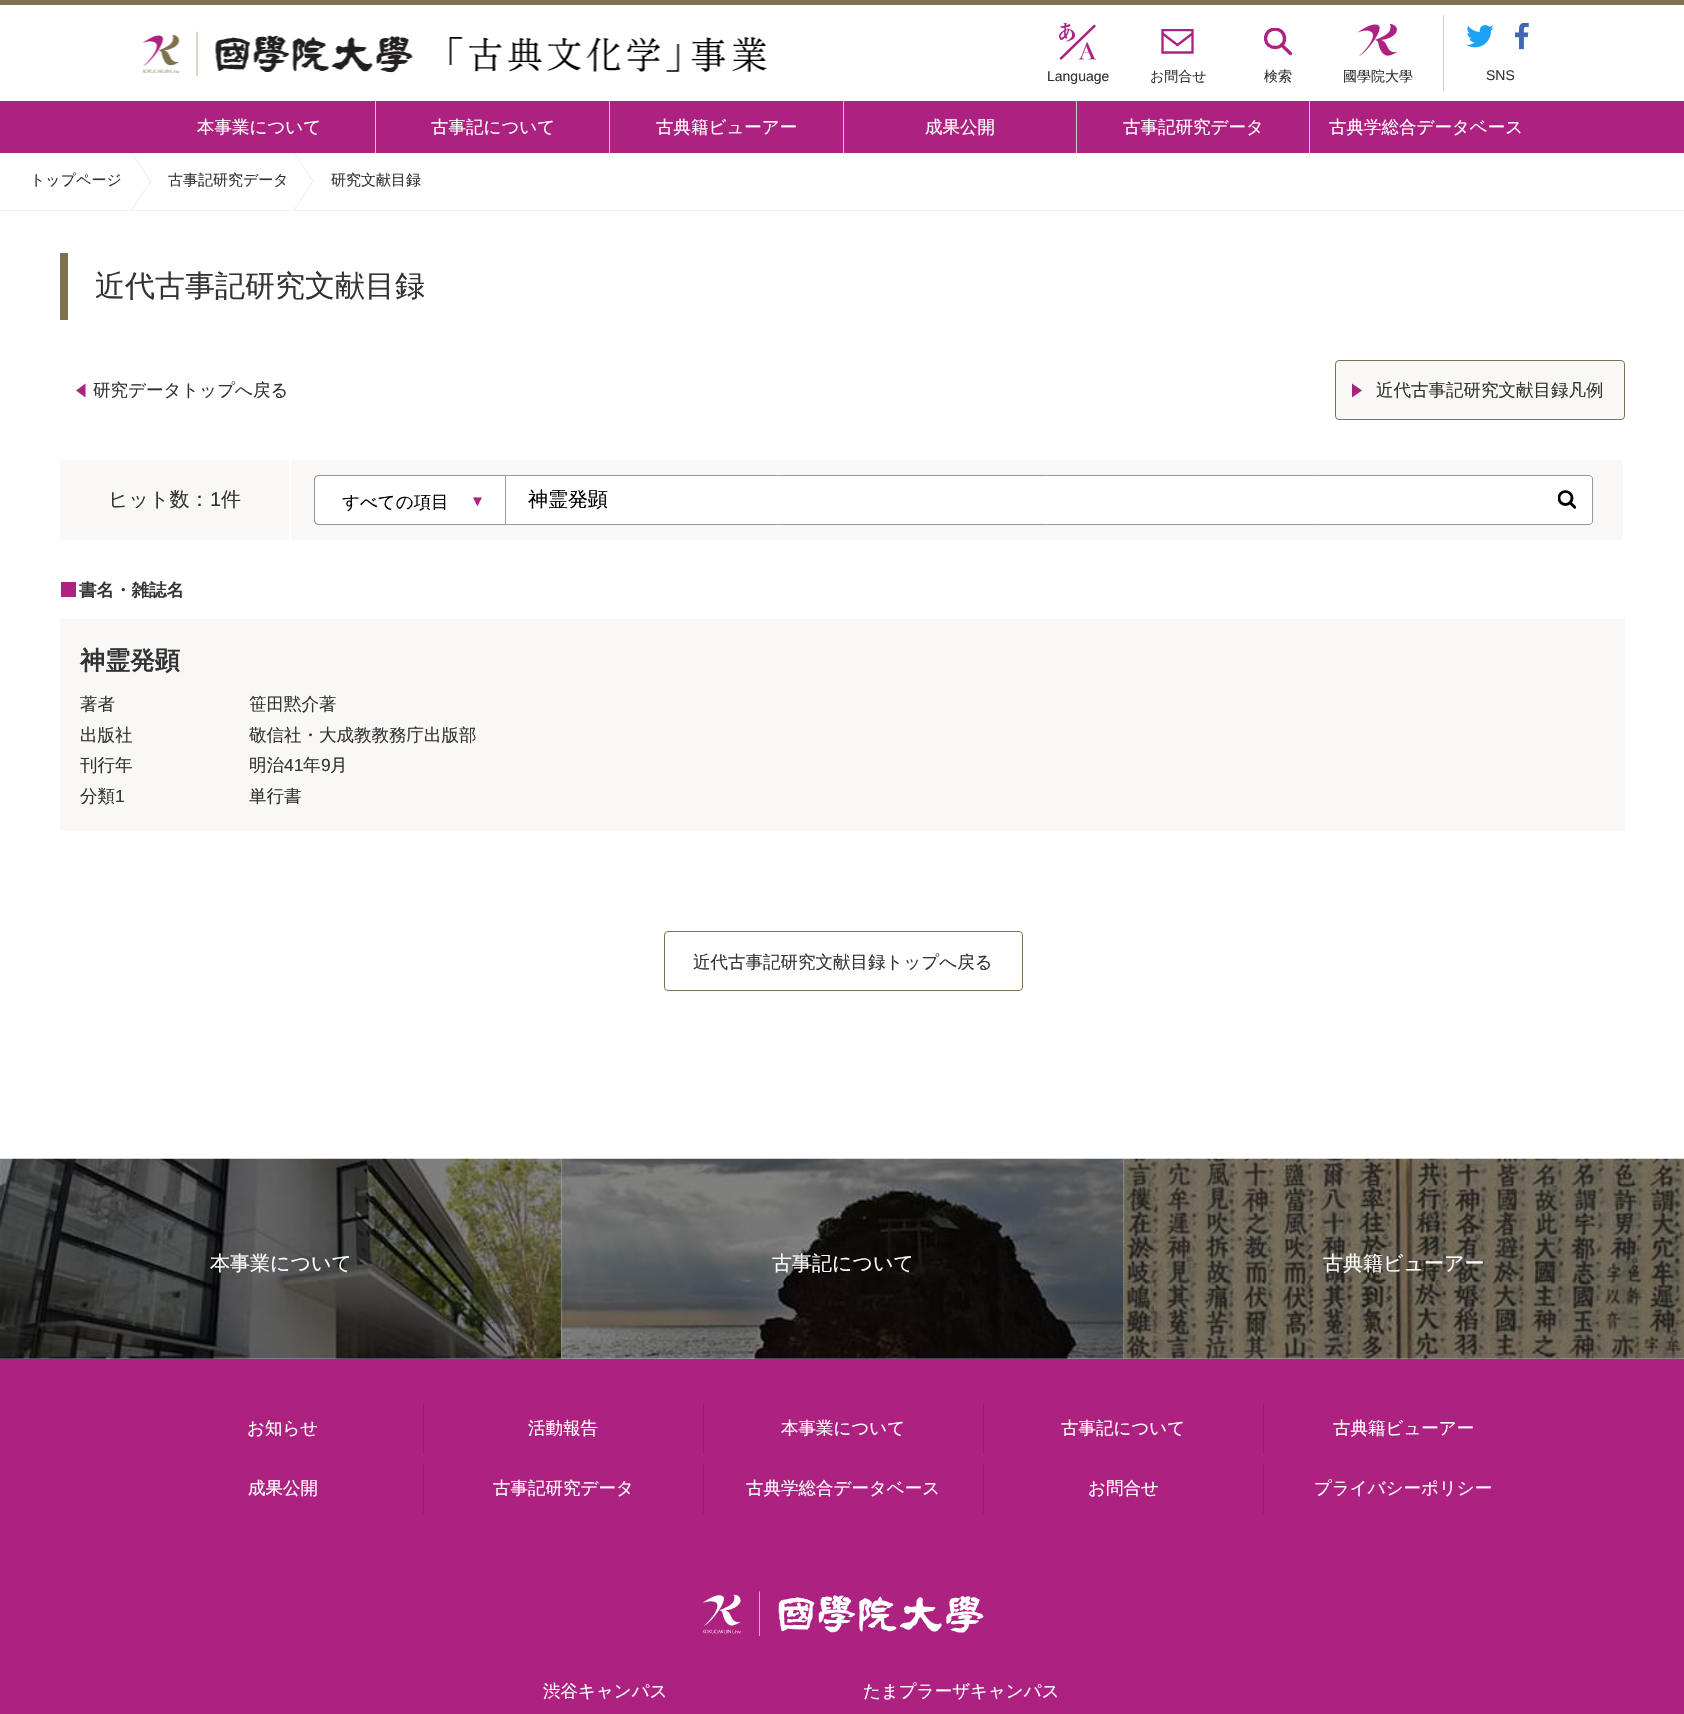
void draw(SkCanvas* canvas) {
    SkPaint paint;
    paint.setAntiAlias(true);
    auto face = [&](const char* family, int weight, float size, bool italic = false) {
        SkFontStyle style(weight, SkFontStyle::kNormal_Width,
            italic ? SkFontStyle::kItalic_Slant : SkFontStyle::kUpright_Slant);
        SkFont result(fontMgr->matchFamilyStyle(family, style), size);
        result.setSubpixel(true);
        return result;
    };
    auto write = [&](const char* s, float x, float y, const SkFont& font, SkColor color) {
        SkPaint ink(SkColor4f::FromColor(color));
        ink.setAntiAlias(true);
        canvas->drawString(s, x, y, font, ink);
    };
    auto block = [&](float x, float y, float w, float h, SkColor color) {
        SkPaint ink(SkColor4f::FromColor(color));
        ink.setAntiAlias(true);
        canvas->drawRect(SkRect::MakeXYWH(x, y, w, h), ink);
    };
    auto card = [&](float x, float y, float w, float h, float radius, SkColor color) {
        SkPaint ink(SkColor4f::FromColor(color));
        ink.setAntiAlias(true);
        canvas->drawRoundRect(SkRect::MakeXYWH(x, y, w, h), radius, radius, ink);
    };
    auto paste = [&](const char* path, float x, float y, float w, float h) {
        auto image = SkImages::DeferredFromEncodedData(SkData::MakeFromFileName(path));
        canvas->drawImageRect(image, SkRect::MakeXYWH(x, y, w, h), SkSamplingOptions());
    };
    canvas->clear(SK_ColorWHITE);
    block(0, 0, 1684, 5, SkColorSetRGB(128, 113, 78));
    paste("pic1.png", 143, 31, 624, 45);
    paste("pic2.png", 1059, 23, 37, 37);
    auto kFont1 = face("Liberation Sans", 400, 14);
    write("Language", 1047, 81, kFont1, SkColorSetRGB(51, 51, 51));
    canvas->save();
    canvas->clipRect(SkRect::MakeXYWH(1161, 29, 33, 25));
    paint.setStyle(SkPaint::kStroke_Style);
    paint.setStrokeWidth(2.3f);
    paint.setColor(SkColorSetRGB(173, 33, 129));
    canvas->drawPath(SkPathBuilder().moveTo(1162.5f, 30).lineTo(1192.5f, 30).lineTo(1192.5f, 52.5f).lineTo(1162.5f, 52.5f).close().detach(), paint);
    canvas->restore();
    canvas->drawPath(SkPathBuilder().moveTo(1162.5f, 33.5f).lineTo(1177.5f, 45).lineTo(1192.5f, 33.5f).detach(), paint);
    auto kFont2 = face("WenQuanYi Zen Hei", 500, 14);
    write("お問合せ", 1150, 81, kFont2, SkColorSetRGB(51, 51, 51));
    canvas->save();
    canvas->clipRect(SkRect::MakeXYWH(1264, 28, 29, 27));
    paint.setStrokeWidth(3.3f);
    canvas->drawPath(SkPathBuilder().moveTo(1284.5f, 38.5f).cubicTo(1284.5f, 50.5f, 1266, 50.5f, 1265.5f, 38.5f).cubicTo(1265.5f, 26, 1284.5f, 26, 1284.5f, 38.5f).close().detach(), paint);
    canvas->restore();
    paint.setStrokeCap(SkPaint::kRound_Cap);
    canvas->drawPath(SkPathBuilder().moveTo(1290.5f, 53.5f).lineTo(1281.5f, 45).detach(), paint);
    write("検索", 1264, 81, kFont2, SkColorSetRGB(51, 51, 51));
    paste("pic3.png", 1358, 24, 39, 32);
    write("國學院大學", 1343, 81, kFont2, SkColorSetRGB(51, 51, 51));
    block(1443, 15, 1, 76, SkColorSetRGB(204, 204, 204));
    paste("pic4.png", 1466, 25, 28, 23);
    paste("pic5.png", 1515, 23, 14, 27);
    write("SNS", 1486, 80, kFont1, SkColorSetRGB(51, 51, 51));
    block(0, 101, 1684, 52, SkColorSetRGB(173, 33, 129));
    auto kFont3 = face("WenQuanYi Zen Hei", 500, 17.5f);
    write("本事業について", 197, 133, kFont3, SK_ColorWHITE);
    block(375, 101, 1, 52, SkColorSetRGB(204, 204, 204));
    write("古事記について", 431, 133, kFont3, SK_ColorWHITE);
    block(609, 101, 1, 52, SkColorSetRGB(204, 204, 204));
    write("古典籍ビューアー", 656, 133, kFont3, SK_ColorWHITE);
    block(843, 101, 1, 52, SkColorSetRGB(204, 204, 204));
    write("成果公開", 925, 133, kFont3, SK_ColorWHITE);
    block(1076, 101, 1, 52, SkColorSetRGB(204, 204, 204));
    write("古事記研究データ", 1123, 133, kFont3, SK_ColorWHITE);
    block(1309, 101, 1, 52, SkColorSetRGB(204, 204, 204));
    write("古典学総合データベース", 1329, 133, kFont3, SK_ColorWHITE);
    block(0, 210, 1684, 1, SkColorSetRGB(240, 240, 240));
    auto kFont4 = face("WenQuanYi Zen Hei", 500, 15);
    write("トップページ", 30, 185, kFont4, SkColorSetRGB(51, 51, 51));
    paste("pic6.png", 131, 153, 20, 57);
    write("古事記研究データ", 168, 185, kFont4, SkColorSetRGB(51, 51, 51));
    paste("pic7.png", 294, 153, 20, 57);
    write("研究文献目録", 331, 185, kFont4, SkColorSetRGB(51, 51, 51));
    block(60, 253, 8, 67, SkColorSetRGB(128, 113, 78));
    auto kFont5 = face("WenQuanYi Zen Hei", 500, 30);
    write("近代古事記研究文献目録", 95, 296, kFont5, SkColorSetRGB(51, 51, 51));
    paint.setStyle(SkPaint::kFill_Style);
    canvas->drawPath(SkPathBuilder().moveTo(85.5f, 383.5f).lineTo(76, 390.5f).lineTo(85.5f, 397.5f).close().detach(), paint);
    write("研究データトップへ戻る", 93, 396, kFont3, SkColorSetRGB(51, 51, 51));
    card(1335, 360, 290, 60, 4, SkColorSetRGB(249, 248, 246));
    canvas->drawPath(SkPathBuilder().moveTo(1352, 397.5f).lineTo(1362, 390.5f).lineTo(1352, 383.5f).close().detach(), paint);
    paint.setStyle(SkPaint::kStroke_Style);
    paint.setStrokeWidth(1);
    paint.setStrokeCap(SkPaint::kButt_Cap);
    paint.setColor(SkColorSetRGB(128, 113, 78));
    canvas->drawRoundRect(SkRect::MakeXYWH(1335.5f, 360.5f, 289, 59), 3.5f, 3.5f, paint);
    write("近代古事記研究文献目録凡例", 1376, 396, kFont3, SkColorSetRGB(51, 51, 51));
    block(60, 460, 229, 80, SkColorSetRGB(249, 248, 246));
    auto kFont6 = face("WenQuanYi Zen Hei", 500, 20);
    write("ヒット数：", 108, 506, kFont6, SkColorSetRGB(51, 51, 51));
    auto kFont7 = face("Liberation Sans", 400, 20);
    write("1", 210, 506, kFont7, SkColorSetRGB(51, 51, 51));
    write("件", 221, 506, kFont6, SkColorSetRGB(51, 51, 51));
    block(291, 460, 1332, 80, SkColorSetRGB(249, 248, 246));
    paint.setStyle(SkPaint::kFill_Style);
    paint.setColor(SK_ColorWHITE);
    canvas->drawPath(SkPathBuilder().moveTo(319, 475).lineTo(505, 475).lineTo(505, 525).lineTo(319, 525).cubicTo(316, 525, 314, 523, 314, 520).lineTo(314, 480).cubicTo(314, 477, 316, 475, 319, 475).close().detach(), paint);
    paint.setColor(SkColorSetRGB(153, 153, 153));
    canvas->drawPath(SkPathBuilder(SkPathFillType::kEvenOdd).moveTo(319, 475).lineTo(505, 475).lineTo(505, 525).lineTo(319, 525).cubicTo(316, 525, 314, 523, 314, 520).lineTo(314, 480).cubicTo(314, 477, 316, 475, 319, 475).close().moveTo(319, 476).lineTo(505, 476).lineTo(505, 524).lineTo(319, 524).cubicTo(317, 524, 315, 522, 315, 520).lineTo(315, 480).cubicTo(315, 478, 317, 476, 319, 476).close().detach(), paint);
    write("すべての項目", 342, 508, kFont3, SK_ColorBLACK);
    auto kFont8 = face("Liberation Sans", 400, 15);
    write("▼", 470, 506, kFont8, SkColorSetRGB(173, 33, 129));
    paint.setColor(SK_ColorWHITE);
    canvas->drawPath(SkPathBuilder().moveTo(505.5f, 475.5f).lineTo(1589, 475.5f).cubicTo(1591, 475.5f, 1592.5f, 477, 1592.5f, 479).lineTo(1592.5f, 521).cubicTo(1592.5f, 523, 1591, 524.5f, 1589, 524.5f).lineTo(505.5f, 524.5f).close().detach(), paint);
    paint.setStyle(SkPaint::kStroke_Style);
    paint.setColor(SkColorSetRGB(153, 153, 153));
    canvas->drawPath(SkPathBuilder().moveTo(505.5f, 475.5f).lineTo(1589, 475.5f).cubicTo(1591, 475.5f, 1592.5f, 477, 1592.5f, 479).lineTo(1592.5f, 521).cubicTo(1592.5f, 523, 1591, 524.5f, 1589, 524.5f).lineTo(505.5f, 524.5f).close().detach(), paint);
    write("神霊発顕", 528, 506, kFont6, SK_ColorBLACK);
    paste("pic8.png", 1558, 490, 18, 19);
    block(61, 582, 15, 15, SkColorSetRGB(173, 33, 129));
    auto kFont9 = face("WenQuanYi Zen Hei", 700, 17.5f);
    write("書名・雑誌名", 79, 596, kFont9, SkColorSetRGB(51, 51, 51));
    block(60, 619, 1565, 212, SkColorSetRGB(249, 248, 246));
    auto kFont10 = face("WenQuanYi Zen Hei", 700, 25);
    write("神霊発顕", 80, 669, kFont10, SkColorSetRGB(51, 51, 51));
    write("著者", 80, 710, kFont3, SkColorSetRGB(51, 51, 51));
    write("笹田黙介著", 249, 710, kFont3, SkColorSetRGB(51, 51, 51));
    write("出版社", 80, 741, kFont3, SkColorSetRGB(51, 51, 51));
    write("敬信社・大成教教務庁出版部", 249, 741, kFont3, SkColorSetRGB(51, 51, 51));
    write("刊行年", 80, 771, kFont3, SkColorSetRGB(51, 51, 51));
    write("明治", 249, 771, kFont3, SkColorSetRGB(51, 51, 51));
    auto kFont11 = face("Liberation Sans", 400, 17.5f);
    write("41", 284, 771, kFont11, SkColorSetRGB(51, 51, 51));
    write("年", 303, 771, kFont3, SkColorSetRGB(51, 51, 51));
    write("9", 321, 771, kFont11, SkColorSetRGB(51, 51, 51));
    write("月", 330, 771, kFont3, SkColorSetRGB(51, 51, 51));
    write("分類", 80, 802, kFont3, SkColorSetRGB(51, 51, 51));
    write("1", 115, 802, kFont11, SkColorSetRGB(51, 51, 51));
    write("単行書", 249, 802, kFont3, SkColorSetRGB(51, 51, 51));
    paint.setColor(SkColorSetRGB(128, 113, 78));
    canvas->drawRoundRect(SkRect::MakeXYWH(664.5f, 931.5f, 358, 59), 3.5f, 3.5f, paint);
    write("近代古事記研究文献目録トップへ戻る", 693, 968, kFont3, SkColorSetRGB(51, 51, 51));
    paste("pic9.png", 0, 1158, 562, 201);
    write("本事業について", 210, 1270, kFont6, SK_ColorWHITE);
    paste("pic10.png", 561, 1158, 563, 201);
    write("古事記について", 772, 1270, kFont6, SK_ColorWHITE);
    paste("pic11.png", 1123, 1158, 561, 201);
    write("古典籍ビューアー", 1323, 1270, kFont6, SK_ColorWHITE);
    block(0, 1359, 1684, 355, SkColorSetRGB(173, 33, 129));
    write("お知らせ", 247, 1434, kFont3, SK_ColorWHITE);
    block(423, 1403, 1, 51, SkColorSetRGB(152, 29, 113));
    write("活動報告", 528, 1434, kFont3, SK_ColorWHITE);
    block(703, 1403, 1, 51, SkColorSetRGB(152, 29, 113));
    write("本事業について", 781, 1434, kFont3, SK_ColorWHITE);
    block(983, 1403, 1, 51, SkColorSetRGB(152, 29, 113));
    write("古事記について", 1061, 1434, kFont3, SK_ColorWHITE);
    block(1263, 1403, 1, 51, SkColorSetRGB(152, 29, 113));
    write("古典籍ビューアー", 1333, 1434, kFont3, SK_ColorWHITE);
    write("成果公開", 248, 1494, kFont3, SK_ColorWHITE);
    block(423, 1464, 1, 50, SkColorSetRGB(152, 29, 113));
    write("古事記研究データ", 493, 1494, kFont3, SK_ColorWHITE);
    block(703, 1464, 1, 50, SkColorSetRGB(152, 29, 113));
    write("古典学総合データベース", 746, 1494, kFont3, SK_ColorWHITE);
    block(983, 1464, 1, 50, SkColorSetRGB(152, 29, 113));
    write("お問合せ", 1088, 1494, kFont3, SK_ColorWHITE);
    block(1263, 1464, 1, 50, SkColorSetRGB(152, 29, 113));
    write("プライバシーポリシー", 1314, 1494, kFont3, SK_ColorWHITE);
    paste("pic12.png", 703, 1591, 281, 45);
    write("渋谷キャンパス", 543, 1697, kFont3, SK_ColorWHITE);
    write("たまプラーザキャンパス", 863, 1697, kFont3, SK_ColorWHITE);
}
